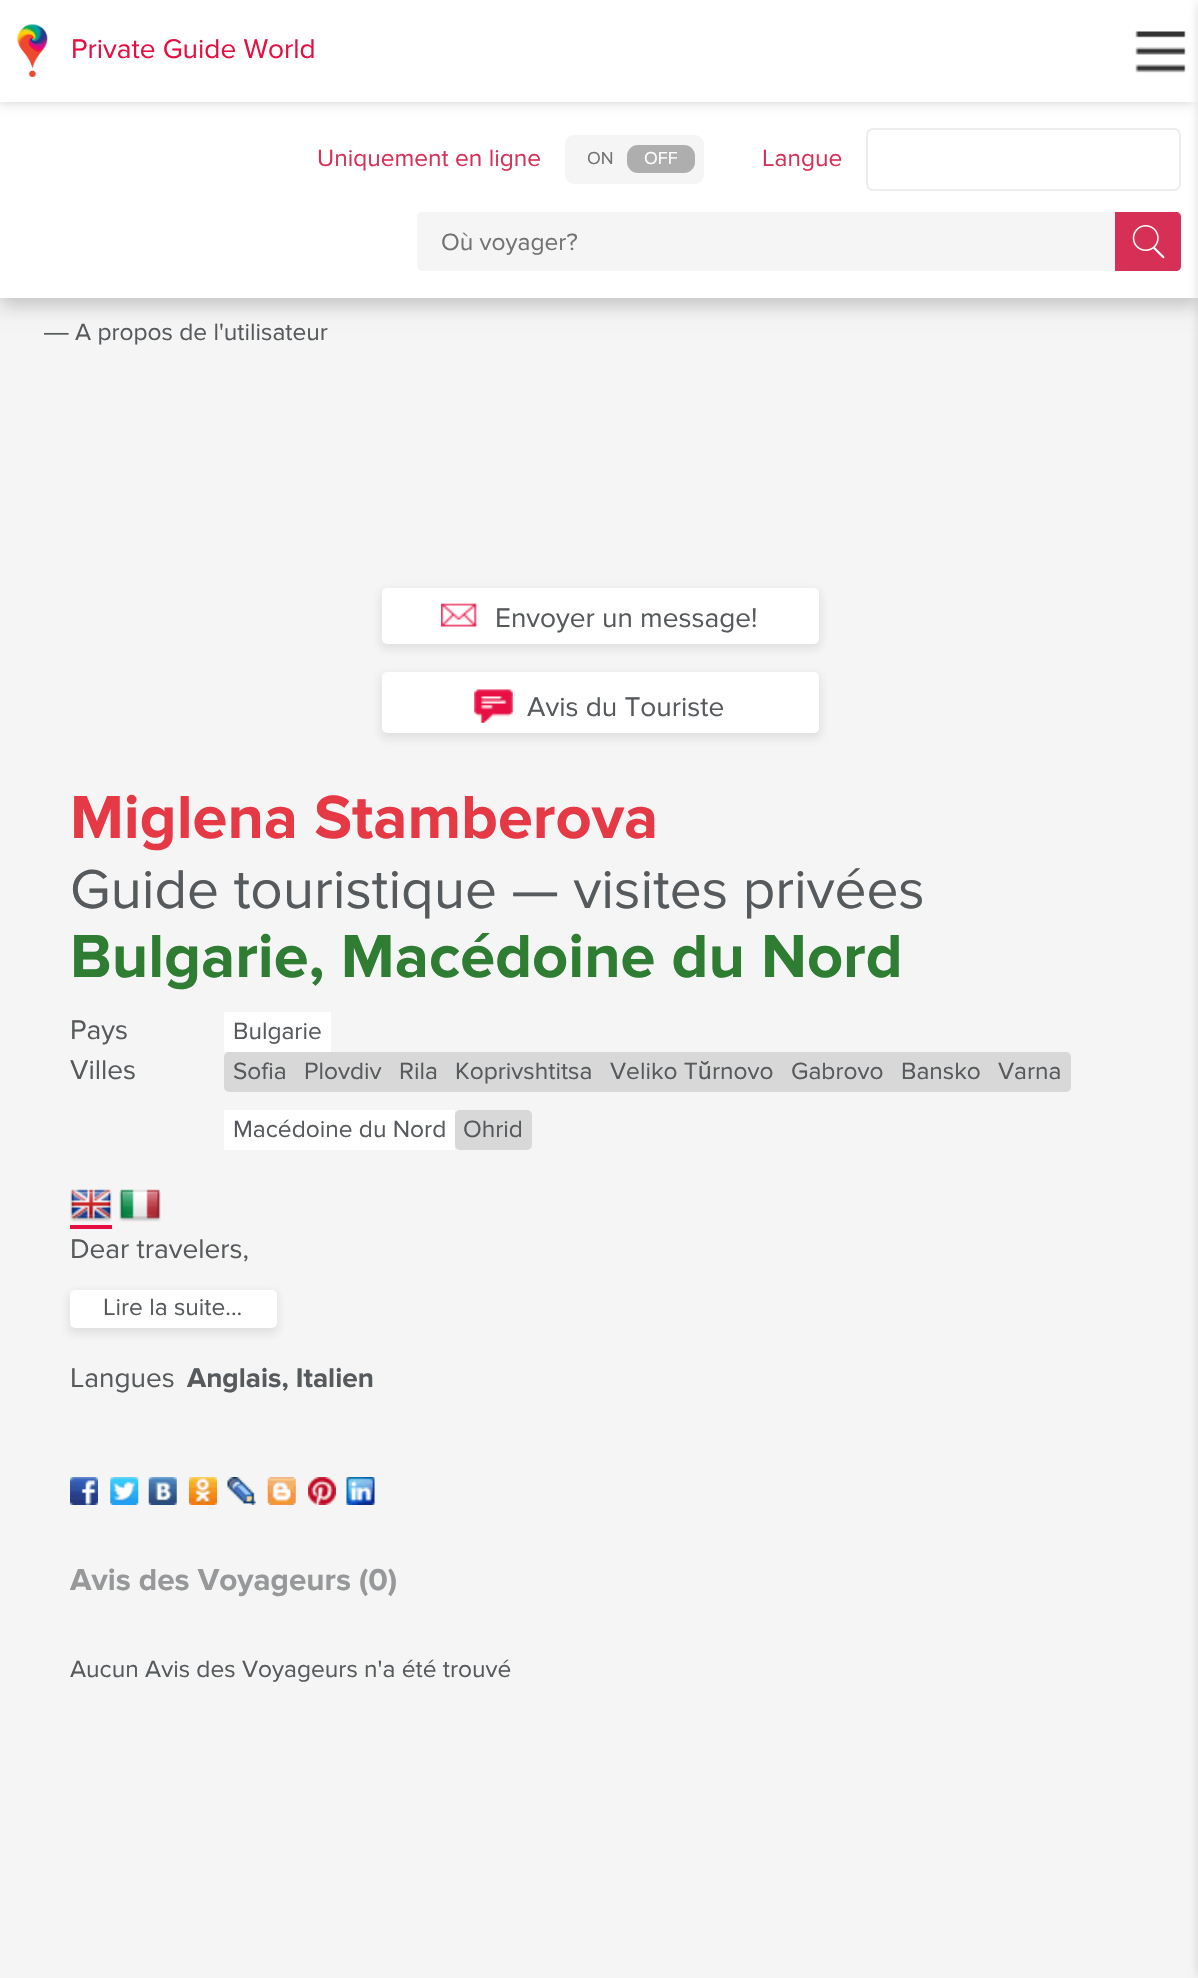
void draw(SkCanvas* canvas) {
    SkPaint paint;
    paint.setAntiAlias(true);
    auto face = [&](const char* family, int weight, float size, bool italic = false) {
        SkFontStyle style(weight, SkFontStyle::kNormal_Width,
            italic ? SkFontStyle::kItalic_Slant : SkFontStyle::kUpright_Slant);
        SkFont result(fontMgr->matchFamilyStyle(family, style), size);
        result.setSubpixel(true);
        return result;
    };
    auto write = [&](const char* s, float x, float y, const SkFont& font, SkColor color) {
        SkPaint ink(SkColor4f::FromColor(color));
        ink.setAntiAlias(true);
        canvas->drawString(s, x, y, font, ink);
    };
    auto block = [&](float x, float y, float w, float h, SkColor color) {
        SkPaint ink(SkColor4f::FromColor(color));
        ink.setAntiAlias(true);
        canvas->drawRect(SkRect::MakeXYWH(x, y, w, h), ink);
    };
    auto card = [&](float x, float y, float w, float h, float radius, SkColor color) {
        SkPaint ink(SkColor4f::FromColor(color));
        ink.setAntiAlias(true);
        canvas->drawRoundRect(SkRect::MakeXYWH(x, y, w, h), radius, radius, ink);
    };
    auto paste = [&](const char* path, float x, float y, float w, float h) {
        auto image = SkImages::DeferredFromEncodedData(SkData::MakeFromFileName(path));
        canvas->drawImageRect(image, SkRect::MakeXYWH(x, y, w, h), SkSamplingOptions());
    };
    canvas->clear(SkColorSetRGB(245, 245, 245));
    paint.setColor(SkColorSetARGB(51, 0, 0, 0));
    paint.setMaskFilter(SkMaskFilter::MakeBlur(kNormal_SkBlurStyle, 9));
    canvas->drawRect(SkRect::MakeXYWH(0, 9, 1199, 297), paint);
    paint.setMaskFilter(nullptr);
    block(0, 0, 1198, 298, SK_ColorWHITE);
    canvas->save();
    canvas->clipPath(SkPathBuilder(SkPathFillType::kEvenOdd).moveTo(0, 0).lineTo(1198, 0).lineTo(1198, 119).lineTo(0, 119).close().moveTo(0, 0).lineTo(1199, 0).lineTo(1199, 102).lineTo(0, 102).close().detach(), true);
    paint.setColor(SkColorSetARGB(43, 0, 0, 0));
    paint.setMaskFilter(SkMaskFilter::MakeBlur(kNormal_SkBlurStyle, 5));
    canvas->drawRect(SkRect::MakeXYWH(0, 9, 1192, 94), paint);
    paint.setMaskFilter(nullptr);
    canvas->restore();
    paste("pic1.png", 17, 24, 31, 53);
    auto kFont1 = face("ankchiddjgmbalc", 400, 28);
    write("Private Guide World", 71, 58, kFont1, SkColorSetRGB(231, 15, 66));
    paint.setMaskFilter(SkMaskFilter::MakeBlur(kNormal_SkBlurStyle, 5));
    canvas->drawRect(SkRect::MakeXYWH(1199, 4, 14, 1972), paint);
    paint.setMaskFilter(nullptr);
    auto kFont2 = face("ankchiddjgmbalc", 400, 24.5f);
    write("Uniquement en ligne", 317, 166, kFont2, SkColorSetRGB(214, 48, 87));
    card(565, 135, 139, 49, 9, SkColorSetRGB(245, 245, 245));
    auto kFont3 = face("ankchiddjgmbalc", 400, 18);
    write("ON", 587, 164, kFont3, SkColorSetRGB(114, 114, 114));
    card(627, 145, 68, 28, 11, SkColorSetRGB(174, 174, 174));
    write("OFF", 644, 164, kFont3, SK_ColorWHITE);
    write("Langue", 762, 166, kFont2, SkColorSetRGB(214, 48, 87));
    paint.setStyle(SkPaint::kStroke_Style);
    paint.setStrokeWidth(2);
    paint.setColor(SkColorSetRGB(237, 237, 237));
    canvas->drawRoundRect(SkRect::MakeXYWH(867, 129, 313, 61), 6, 6, paint);
    card(417, 212, 700, 59, 5, SkColorSetRGB(245, 245, 245));
    write("Où voyager?", 441, 250, kFont2, SkColorSetRGB(114, 114, 114));
    paint.setStyle(SkPaint::kFill_Style);
    paint.setColor(SkColorSetRGB(214, 48, 87));
    canvas->drawPath(SkPathBuilder().moveTo(1115, 212).lineTo(1176, 212).cubicTo(1179, 212, 1181, 214, 1181, 217).lineTo(1181, 266).cubicTo(1181, 269, 1179, 271, 1176, 271).lineTo(1115, 271).close().detach(), paint);
    paste("pic2.png", 1132, 225, 33, 34);
    paste("pic3.png", 1135, 31, 51, 42);
    auto kFont4 = face("Liberation Sans", 400, 24.5f);
    write("―", 44, 340, kFont4, SkColorSetRGB(86, 90, 92));
    write("A propos de l'utilisateur", 75, 340, kFont2, SkColorSetRGB(86, 90, 92));
    paint.setColor(SkColorSetARGB(31, 73, 73, 73));
    paint.setMaskFilter(SkMaskFilter::MakeBlur(kNormal_SkBlurStyle, 4.5f));
    canvas->drawRoundRect(SkRect::MakeXYWH(380, 590, 441, 59), 7, 7, paint);
    paint.setMaskFilter(nullptr);
    card(382, 588, 437, 56, 5, SK_ColorWHITE);
    paste("pic4.png", 441, 603, 36, 24);
    write("Envoyer un message!", 495, 627, kFont1, SkColorSetRGB(86, 90, 92));
    paint.setMaskFilter(SkMaskFilter::MakeBlur(kNormal_SkBlurStyle, 4.5f));
    canvas->drawRoundRect(SkRect::MakeXYWH(380, 674, 441, 65), 7, 7, paint);
    paint.setMaskFilter(nullptr);
    card(382, 672, 437, 61, 5, SK_ColorWHITE);
    paste("pic5.png", 474, 689, 39, 34);
    write("Avis du Touriste", 527, 716, kFont1, SkColorSetRGB(86, 90, 92));
    auto kFont5 = face("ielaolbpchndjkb", 700, 63);
    write("Miglena Stamberova", 70, 838, kFont5, SkColorSetRGB(230, 57, 70));
    auto kFont6 = face("ankchiddjgmbalc", 400, 56.75f);
    write("Guide touristique — visites privées", 70, 908, kFont6, SkColorSetRGB(86, 90, 92));
    write("Bulgarie, Macédoine du Nord", 70, 977, kFont5, SkColorSetRGB(46, 125, 50));
    write("Pays", 70, 1039, kFont1, SkColorSetRGB(86, 90, 92));
    write("Villes", 70, 1079, kFont1, SkColorSetRGB(86, 90, 92));
    block(224, 1012, 107, 40, SK_ColorWHITE);
    write("Bulgarie", 233, 1039, kFont2, SkColorSetRGB(86, 90, 92));
    card(224, 1052, 847, 40, 5, SkColorSetRGB(216, 216, 216));
    write("Sofia", 233, 1079, kFont2, SkColorSetRGB(86, 90, 92));
    write("Plovdiv", 304, 1079, kFont2, SkColorSetRGB(86, 90, 92));
    write("Rila", 399, 1079, kFont2, SkColorSetRGB(86, 90, 92));
    write("Koprivshtitsa", 455, 1079, kFont2, SkColorSetRGB(86, 90, 92));
    write("Veliko T", 610, 1079, kFont2, SkColorSetRGB(86, 90, 92));
    write("ŭ", 698, 1079, kFont4, SkColorSetRGB(86, 90, 92));
    write("rnovo", 712, 1079, kFont2, SkColorSetRGB(86, 90, 92));
    write("Gabrovo", 791, 1079, kFont2, SkColorSetRGB(86, 90, 92));
    write("Bansko", 901, 1079, kFont2, SkColorSetRGB(86, 90, 92));
    write("Varna", 998, 1079, kFont2, SkColorSetRGB(86, 90, 92));
    block(224, 1110, 231, 40, SK_ColorWHITE);
    write("Macédoine du Nord", 233, 1137, kFont2, SkColorSetRGB(86, 90, 92));
    card(455, 1110, 77, 40, 5, SkColorSetRGB(216, 216, 216));
    write("Ohrid", 463, 1137, kFont2, SkColorSetRGB(86, 90, 92));
    paste("pic6.png", 70, 1189, 42, 33);
    block(70, 1225, 42, 4, SkColorSetRGB(231, 15, 66));
    paste("pic7.png", 119, 1189, 42, 33);
    write("Dear travelers,", 70, 1258, kFont1, SkColorSetRGB(86, 90, 92));
    paint.setMaskFilter(SkMaskFilter::MakeBlur(kNormal_SkBlurStyle, 4.5f));
    canvas->drawRoundRect(SkRect::MakeXYWH(68, 1292, 210, 42), 7, 7, paint);
    paint.setMaskFilter(nullptr);
    card(70, 1290, 207, 38, 5, SK_ColorWHITE);
    write("Lire la suite...", 103, 1315, kFont2, SkColorSetRGB(86, 90, 92));
    write("Langues", 70, 1387, kFont1, SkColorSetRGB(86, 90, 92));
    auto kFont7 = face("ielaolbpchndjkb", 700, 28);
    write("Anglais, Italien", 187, 1387, kFont7, SkColorSetRGB(86, 90, 92));
    paste("pic8.png", 70, 1477, 28, 28);
    paste("pic9.png", 110, 1477, 29, 28);
    paste("pic10.png", 148, 1477, 29, 28);
    paste("pic11.png", 189, 1477, 28, 28);
    paste("pic12.png", 227, 1477, 29, 28);
    paste("pic13.png", 267, 1477, 29, 28);
    paste("pic14.png", 308, 1477, 28, 28);
    paste("pic15.png", 346, 1477, 29, 28);
    auto kFont8 = face("ielaolbpchndjkb", 700, 31.5f);
    write("Avis des Voyageurs (0)", 70, 1590, kFont8, SkColorSetRGB(150, 152, 153));
    write("Aucun Avis des Voyageurs n'a été trouvé", 70, 1677, kFont2, SkColorSetRGB(86, 90, 92));
}
